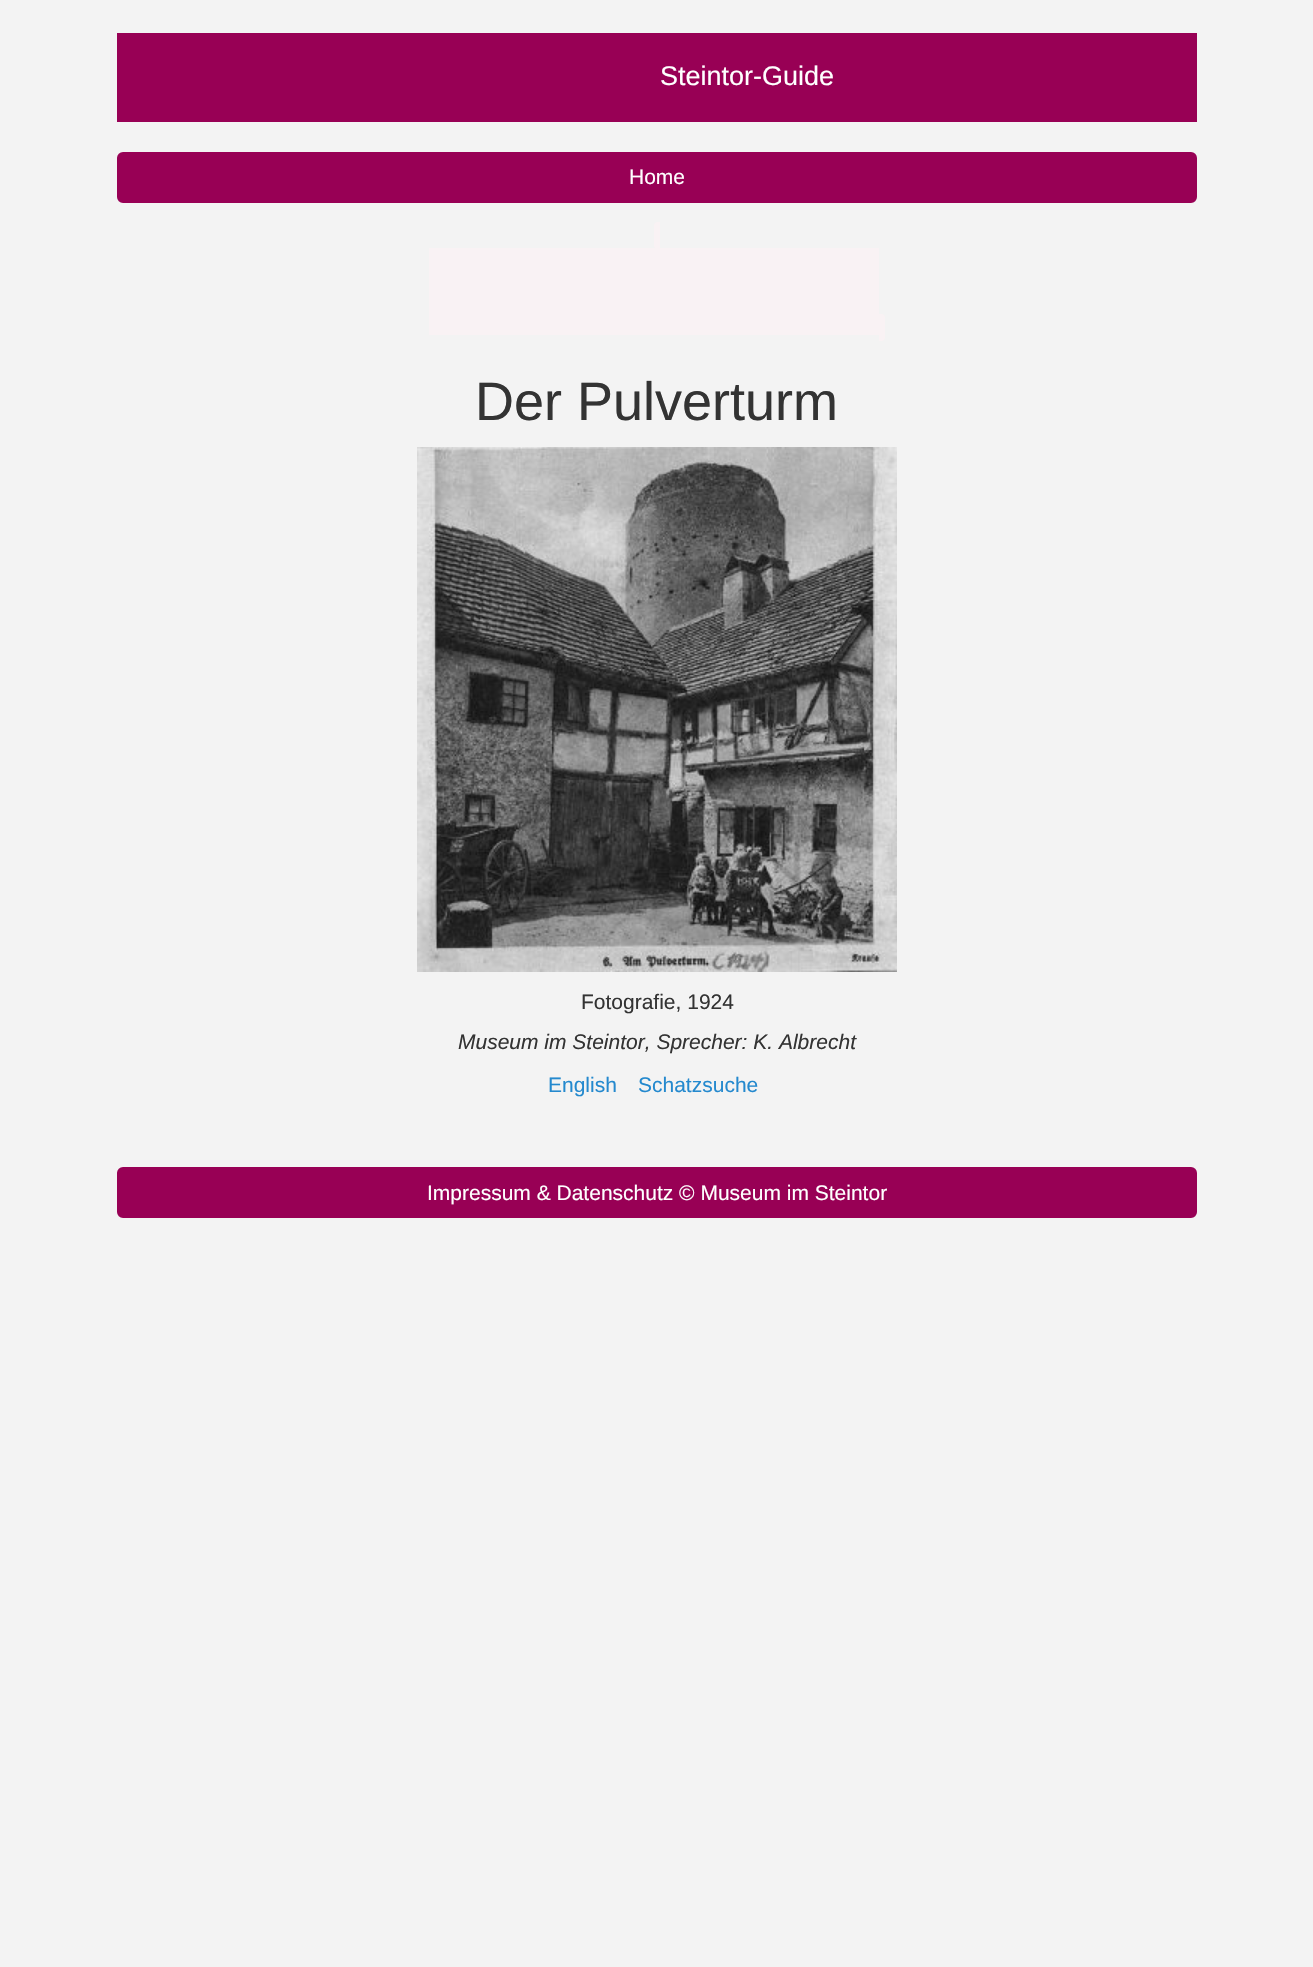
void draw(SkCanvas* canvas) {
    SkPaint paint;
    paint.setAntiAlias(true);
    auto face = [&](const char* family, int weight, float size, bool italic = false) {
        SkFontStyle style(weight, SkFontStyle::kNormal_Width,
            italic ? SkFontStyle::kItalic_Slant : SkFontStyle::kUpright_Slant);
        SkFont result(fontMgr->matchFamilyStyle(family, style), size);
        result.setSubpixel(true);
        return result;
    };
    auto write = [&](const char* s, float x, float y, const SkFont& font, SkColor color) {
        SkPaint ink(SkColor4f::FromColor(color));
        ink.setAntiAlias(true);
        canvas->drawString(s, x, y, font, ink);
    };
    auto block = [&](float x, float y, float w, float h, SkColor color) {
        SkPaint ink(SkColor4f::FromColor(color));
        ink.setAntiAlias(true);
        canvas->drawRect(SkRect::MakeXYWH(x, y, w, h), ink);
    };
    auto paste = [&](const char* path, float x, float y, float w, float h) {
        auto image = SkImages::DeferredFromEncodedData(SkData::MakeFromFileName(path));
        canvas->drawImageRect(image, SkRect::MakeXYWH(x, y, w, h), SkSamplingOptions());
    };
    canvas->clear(SkColorSetRGB(243, 243, 243));
    block(117, 33, 1080, 89, SkColorSetRGB(152, 0, 85));
    auto kFont1 = face("Liberation Sans", 400, 27);
    write("Steintor-Guide", 660, 85, kFont1, SK_ColorWHITE);
    paint.setColor(SkColorSetRGB(152, 0, 85));
    canvas->drawRoundRect(SkRect::MakeXYWH(118, 153, 1078, 49), 5, 5, paint);
    paint.setStyle(SkPaint::kStroke_Style);
    paint.setStrokeWidth(2);
    canvas->drawRoundRect(SkRect::MakeXYWH(118, 153, 1078, 49), 5, 5, paint);
    auto kFont2 = face("Liberation Sans", 400, 21);
    write("Home", 629, 184, kFont2, SK_ColorWHITE);
    paint.setStyle(SkPaint::kFill_Style);
    paint.setColor(SkColorSetRGB(249, 242, 244));
    canvas->drawPath(SkPathBuilder().moveTo(657, 222).lineTo(660, 222).lineTo(660, 249).lineTo(657, 249).cubicTo(655.5f, 249, 654, 247.5f, 654, 246).lineTo(654, 225).cubicTo(654, 223.5f, 655.5f, 222, 657, 222).close().detach(), paint);
    block(429, 248, 450, 87, SkColorSetRGB(249, 242, 244));
    canvas->drawPath(SkPathBuilder().moveTo(879, 314).lineTo(882, 314).cubicTo(883.5f, 314, 885, 315.5f, 885, 317).lineTo(885, 338).cubicTo(885, 339.5f, 883.5f, 341, 882, 341).lineTo(879, 341).close().detach(), paint);
    auto kFont3 = face("Liberation Sans", 400, 54);
    write("Der Pulverturm", 475, 420, kFont3, SkColorSetRGB(51, 51, 51));
    paste("pic1.png", 417, 447, 480, 525);
    write("Fotografie, 1924", 581, 1009, kFont2, SkColorSetRGB(51, 51, 51));
    auto kFont4 = face("Liberation Sans", 400, 21, true);
    write("Museum im Steintor, Sprecher: K. Albrecht", 458, 1049, kFont4, SkColorSetRGB(51, 51, 51));
    write("English", 548, 1092, kFont2, SkColorSetRGB(36, 137, 206));
    write("Schatzsuche", 638, 1092, kFont2, SkColorSetRGB(36, 137, 206));
    paint.setColor(SkColorSetRGB(152, 0, 85));
    canvas->drawRoundRect(SkRect::MakeXYWH(118, 1168, 1078, 49), 5, 5, paint);
    paint.setStyle(SkPaint::kStroke_Style);
    canvas->drawRoundRect(SkRect::MakeXYWH(118, 1168, 1078, 49), 5, 5, paint);
    write("Impressum & Datenschutz © Museum im Steintor", 427, 1200, kFont2, SK_ColorWHITE);
}
